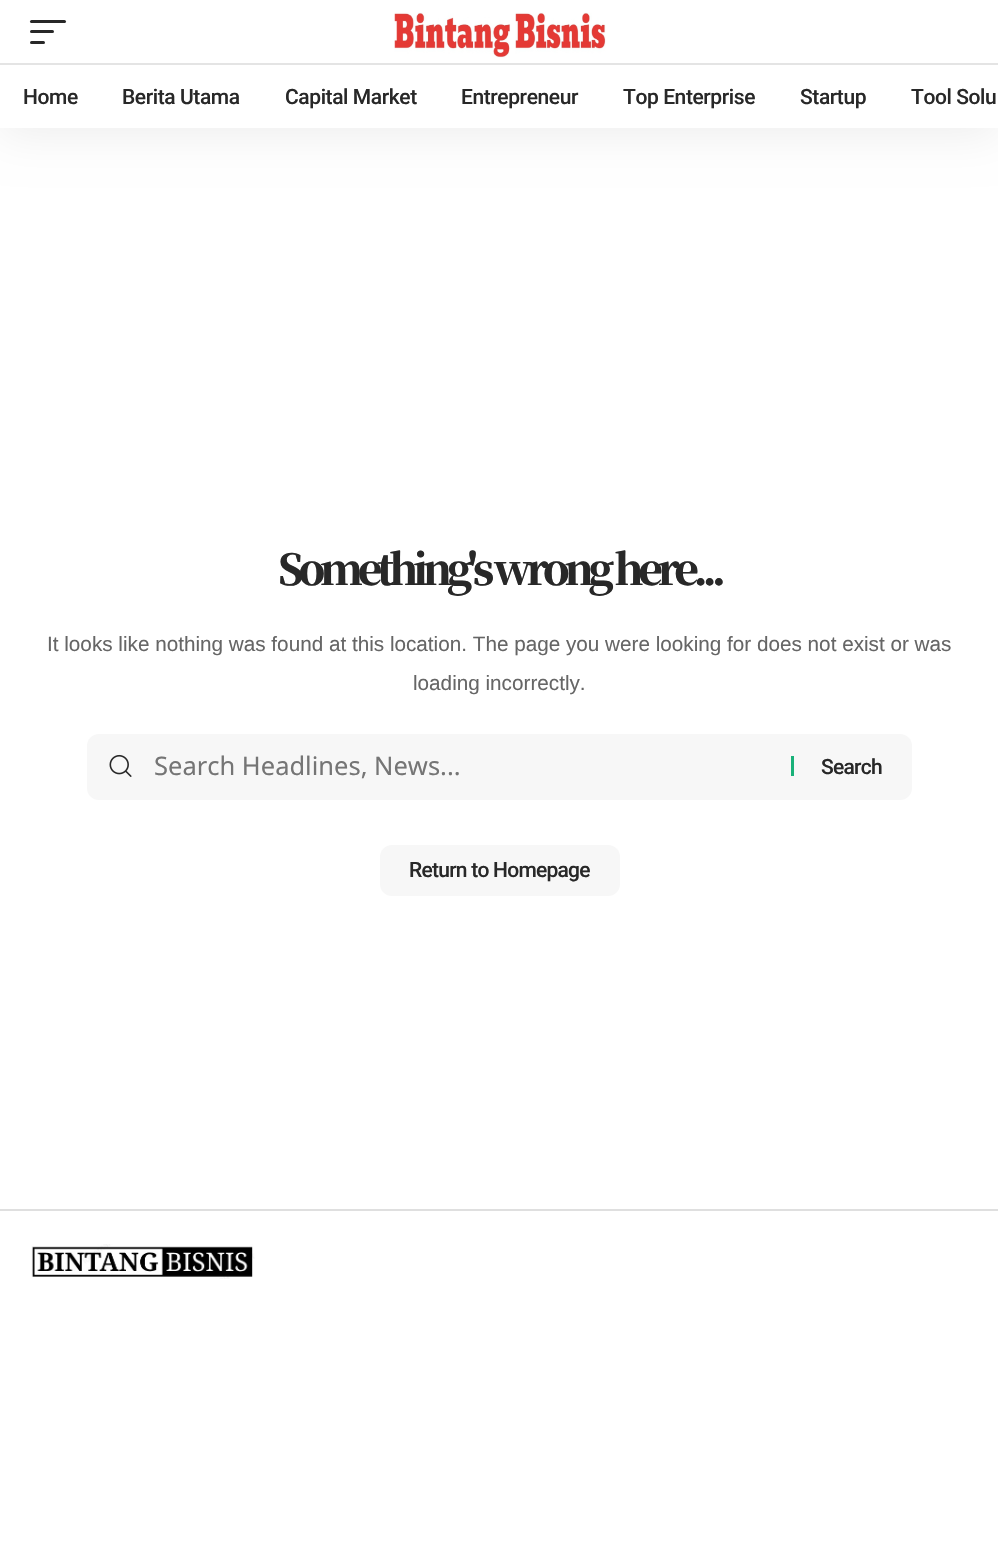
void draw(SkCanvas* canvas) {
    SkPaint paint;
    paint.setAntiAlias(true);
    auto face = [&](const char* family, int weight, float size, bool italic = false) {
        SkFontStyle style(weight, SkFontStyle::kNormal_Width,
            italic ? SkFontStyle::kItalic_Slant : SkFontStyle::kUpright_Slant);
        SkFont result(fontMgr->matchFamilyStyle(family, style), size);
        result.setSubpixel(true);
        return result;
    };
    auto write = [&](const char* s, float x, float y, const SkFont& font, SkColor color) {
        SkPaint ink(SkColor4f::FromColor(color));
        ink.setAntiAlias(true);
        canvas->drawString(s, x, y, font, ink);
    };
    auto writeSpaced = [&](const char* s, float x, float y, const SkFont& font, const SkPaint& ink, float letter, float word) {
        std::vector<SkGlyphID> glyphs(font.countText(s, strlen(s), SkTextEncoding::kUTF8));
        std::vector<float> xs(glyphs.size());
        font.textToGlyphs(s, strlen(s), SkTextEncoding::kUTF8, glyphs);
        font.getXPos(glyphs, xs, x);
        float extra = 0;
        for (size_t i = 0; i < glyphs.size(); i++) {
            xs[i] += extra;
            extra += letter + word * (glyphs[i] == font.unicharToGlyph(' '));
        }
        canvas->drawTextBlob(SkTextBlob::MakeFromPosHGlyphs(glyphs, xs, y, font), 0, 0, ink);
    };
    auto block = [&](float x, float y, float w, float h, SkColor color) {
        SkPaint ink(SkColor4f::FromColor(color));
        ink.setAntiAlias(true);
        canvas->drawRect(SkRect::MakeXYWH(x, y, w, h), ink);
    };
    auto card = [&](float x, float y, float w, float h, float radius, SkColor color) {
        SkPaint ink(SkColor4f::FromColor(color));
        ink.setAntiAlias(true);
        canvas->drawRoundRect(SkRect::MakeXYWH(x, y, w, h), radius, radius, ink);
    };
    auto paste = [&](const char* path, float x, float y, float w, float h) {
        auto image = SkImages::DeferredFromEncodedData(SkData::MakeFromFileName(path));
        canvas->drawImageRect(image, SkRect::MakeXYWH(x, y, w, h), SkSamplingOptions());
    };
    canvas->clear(SK_ColorWHITE);
    paint.setColor(SkColorSetARGB(18, 0, 0, 0));
    paint.setMaskFilter(SkMaskFilter::MakeBlur(kNormal_SkBlurStyle, 22.5f));
    canvas->drawRect(SkRect::MakeXYWH(0, 6, 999, 128), paint);
    paint.setMaskFilter(nullptr);
    block(0, 0, 998, 128, SK_ColorWHITE);
    card(30, 20, 36, 3, 1.5f, SkColorSetRGB(40, 40, 40));
    card(30, 30, 24, 3, 1.5f, SkColorSetRGB(40, 40, 40));
    card(30, 41, 15, 3, 1.5f, SkColorSetRGB(40, 40, 40));
    paste("pic1.png", 394, 12, 212, 46);
    block(0, 63, 998, 2, SkColorSetRGB(228, 228, 228));
    auto kFont1 = face("Roboto", 500, 21);
    paint.setColor(SkColorSetRGB(40, 40, 40));
    writeSpaced("Home", 23, 104, kFont1, paint, -0.4f, 0);
    writeSpaced("Berita Utama", 122, 104, kFont1, paint, -0.4f, 0);
    writeSpaced("Capital Market", 285, 104, kFont1, paint, -0.4f, 0);
    writeSpaced("Entrepreneur", 461, 104, kFont1, paint, -0.4f, 0);
    writeSpaced("Top Enterprise", 623, 104, kFont1, paint, -0.4f, 0);
    writeSpaced("Startup", 800, 104, kFont1, paint, -0.4f, 0);
    writeSpaced("Tool Solu", 911, 104, kFont1, paint, -0.4f, 0);
    auto kFont2 = face("Noto Serif JP", 900, 42);
    writeSpaced("Something's wrong here...", 278, 585, kFont2, paint, -5.25f, 0);
    auto kFont3 = face("Liberation Sans", 400, 20.7f);
    write("It looks like nothing was found at this location. The page you were looking for does not exist or was", 47, 651, kFont3, SkColorSetRGB(102, 102, 102));
    write("loading incorrectly.", 413, 690, kFont3, SkColorSetRGB(102, 102, 102));
    card(87, 734, 825, 66, 12, SkColorSetRGB(247, 247, 247));
    paste("pic2.png", 109, 754, 23, 23);
    auto kFont4 = face("Noto Sans", 400, 25.5f);
    write("Search Headlines, News...", 154, 775, kFont4, SkColorSetRGB(117, 117, 117));
    block(791, 756, 3, 20, SkColorSetRGB(25, 177, 121));
    writeSpaced("Search", 821, 774, kFont1, paint, -0.75f, 0);
    card(380, 845, 240, 51, 12, SkColorSetRGB(247, 247, 247));
    writeSpaced("Return to Homepage", 409, 877, kFont1, paint, -0.75f, 0);
    block(0, 1209, 998, 2, SkColorSetRGB(223, 223, 223));
    paste("pic3.png", 31, 1244, 224, 35);
}
